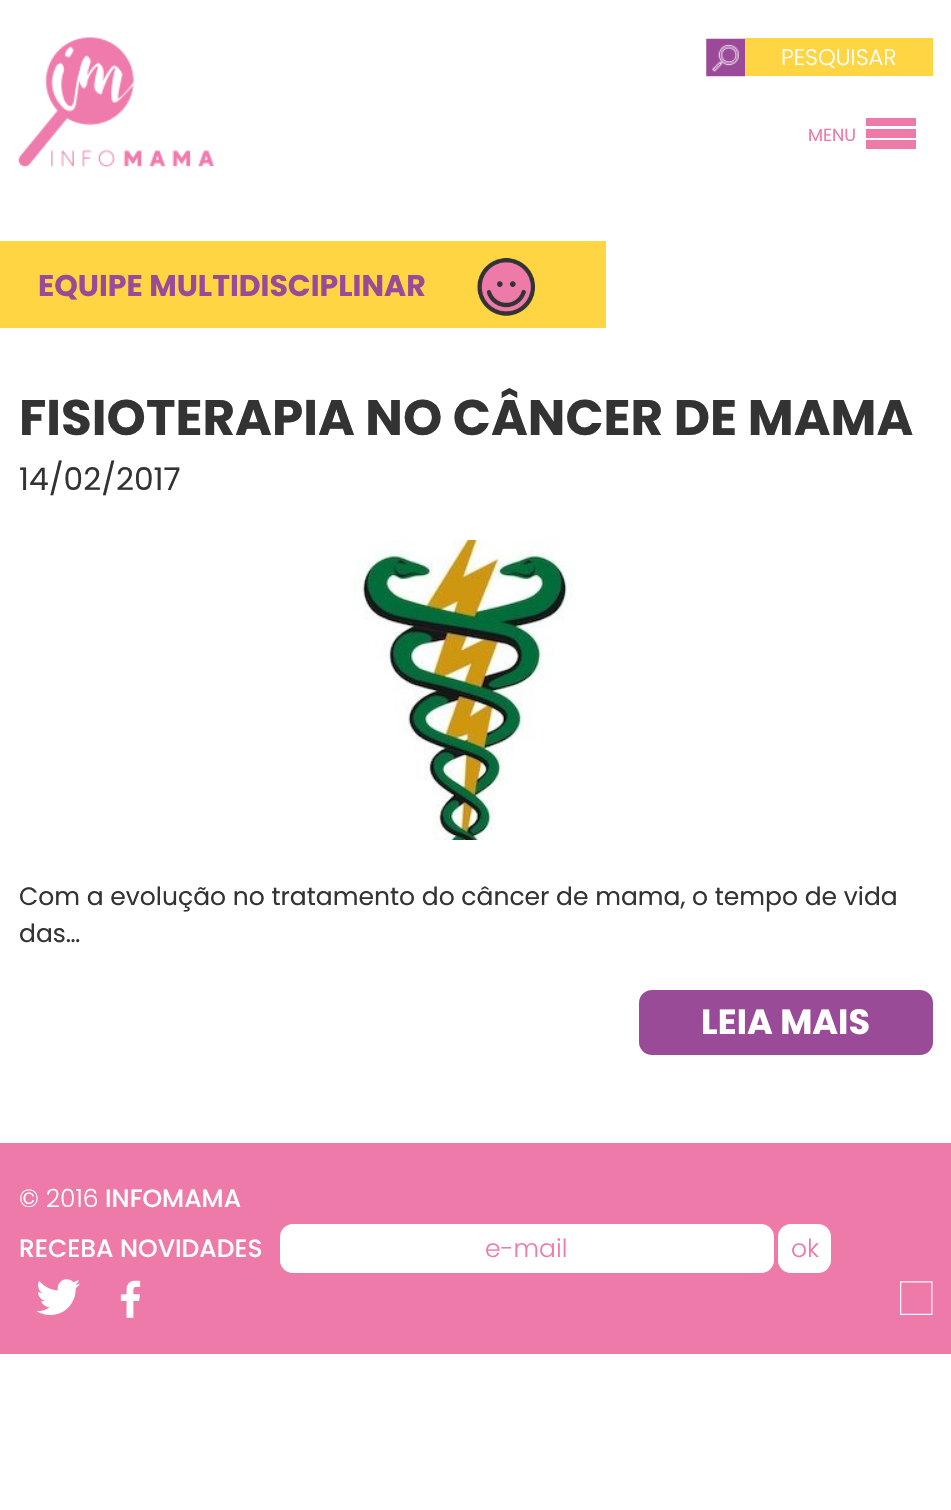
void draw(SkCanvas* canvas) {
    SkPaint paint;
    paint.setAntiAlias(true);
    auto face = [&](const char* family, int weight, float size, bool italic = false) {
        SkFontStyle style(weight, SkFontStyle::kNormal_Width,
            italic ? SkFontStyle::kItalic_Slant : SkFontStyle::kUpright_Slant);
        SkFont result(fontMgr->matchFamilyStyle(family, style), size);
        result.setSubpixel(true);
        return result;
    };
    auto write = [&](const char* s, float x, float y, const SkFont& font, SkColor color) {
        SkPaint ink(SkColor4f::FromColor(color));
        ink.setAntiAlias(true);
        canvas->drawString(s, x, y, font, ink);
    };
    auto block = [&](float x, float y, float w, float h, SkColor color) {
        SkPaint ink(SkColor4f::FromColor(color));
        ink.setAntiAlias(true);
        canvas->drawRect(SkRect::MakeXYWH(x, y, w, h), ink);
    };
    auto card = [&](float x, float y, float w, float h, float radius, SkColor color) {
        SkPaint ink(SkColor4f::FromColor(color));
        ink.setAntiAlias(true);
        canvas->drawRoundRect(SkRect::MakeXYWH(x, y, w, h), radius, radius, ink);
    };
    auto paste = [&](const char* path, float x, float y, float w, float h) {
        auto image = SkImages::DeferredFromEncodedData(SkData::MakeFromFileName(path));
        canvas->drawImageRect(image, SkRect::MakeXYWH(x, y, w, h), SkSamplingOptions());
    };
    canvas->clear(SK_ColorWHITE);
    paste("pic1.png", 18, 37, 196, 130);
    paste("pic2.png", 706, 38, 39, 39);
    block(745, 38, 188, 38, SkColorSetRGB(255, 213, 68));
    auto kFont1 = face("Poppins", 300, 22.5f);
    write("PESQUISAR", 781, 65, kFont1, SK_ColorWHITE);
    auto kFont2 = face("Poppins", 400, 17.5f);
    write("MENU", 808, 141, kFont2, SkColorSetRGB(237, 122, 169));
    block(866, 118, 50, 8, SkColorSetRGB(237, 122, 169));
    block(866, 129, 50, 9, SkColorSetRGB(237, 122, 169));
    block(866, 140, 50, 9, SkColorSetRGB(237, 122, 169));
    block(0, 241, 606, 87, SkColorSetRGB(255, 213, 68));
    auto kFont3 = face("Poppins", 700, 30);
    write("EQUIPE MULTIDISCIPLINAR", 38, 296, kFont3, SkColorSetRGB(153, 75, 151));
    paste("pic3.png", 477, 258, 58, 58);
    auto kFont4 = face("Poppins", 700, 50);
    write("FISIOTERAPIA NO CÂNCER DE MAMA", 19, 435, kFont4, SkColorSetRGB(51, 51, 51));
    auto kFont5 = face("Poppins", 400, 31.25f);
    write("14/02/2017", 19, 490, kFont5, SkColorSetRGB(51, 51, 51));
    paste("pic4.png", 354, 540, 220, 300);
    auto kFont6 = face("Poppins", 400, 25);
    write("Com a evolução no tratamento do câncer de mama, o tempo de vida", 19, 905, kFont6, SkColorSetRGB(51, 51, 51));
    write("das…", 19, 942, kFont6, SkColorSetRGB(51, 51, 51));
    card(639, 990, 294, 65, 13, SkColorSetRGB(153, 75, 151));
    auto kFont7 = face("Poppins", 700, 35);
    write("LEIA MAIS", 701, 1034, kFont7, SK_ColorWHITE);
    block(0, 1143, 951, 211, SkColorSetRGB(237, 122, 169));
    auto kFont8 = face("Poppins", 300, 25);
    write("© 2016", 19, 1207, kFont8, SK_ColorWHITE);
    auto kFont9 = face("Poppins", 500, 25);
    write("INFOMAMA", 105, 1207, kFont9, SK_ColorWHITE);
    write("RECEBA NOVIDADES", 19, 1257, kFont9, SK_ColorWHITE);
    card(280, 1224, 494, 49, 13, SK_ColorWHITE);
    write("e-mail", 485, 1257, kFont8, SkColorSetRGB(237, 122, 169));
    card(778, 1224, 53, 49, 13, SK_ColorWHITE);
    write("ok", 791, 1257, kFont8, SkColorSetRGB(237, 122, 169));
    paste("pic5.png", 36, 1279, 44, 36);
    paste("pic6.png", 120, 1280, 21, 38);
    paste("pic7.png", 900, 1281, 33, 34);
}
